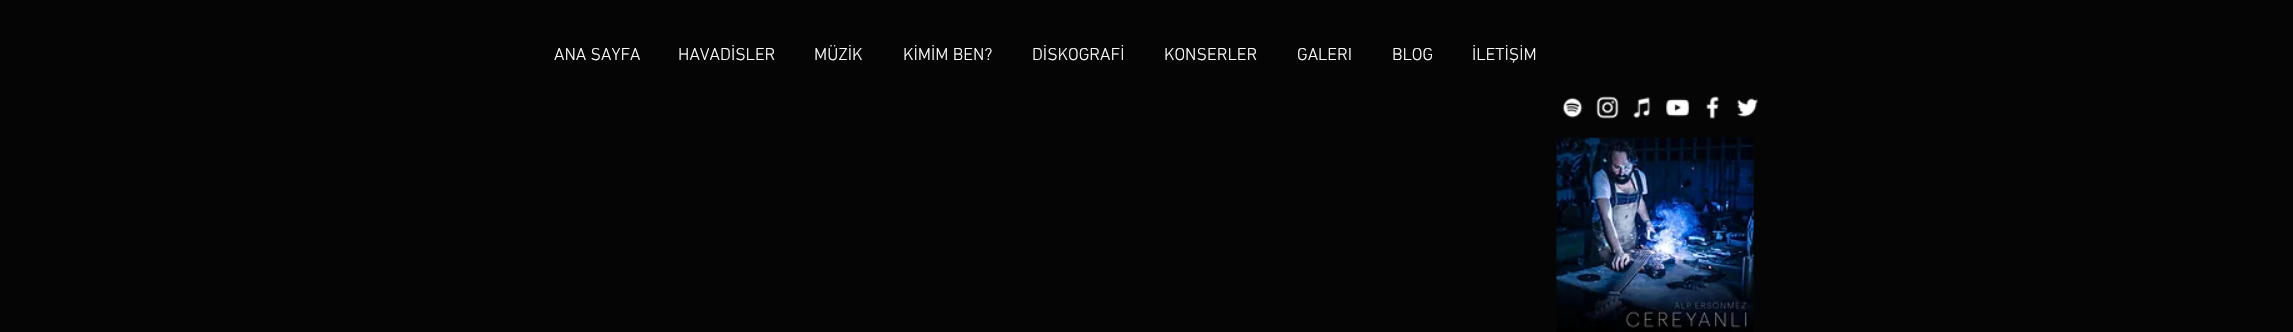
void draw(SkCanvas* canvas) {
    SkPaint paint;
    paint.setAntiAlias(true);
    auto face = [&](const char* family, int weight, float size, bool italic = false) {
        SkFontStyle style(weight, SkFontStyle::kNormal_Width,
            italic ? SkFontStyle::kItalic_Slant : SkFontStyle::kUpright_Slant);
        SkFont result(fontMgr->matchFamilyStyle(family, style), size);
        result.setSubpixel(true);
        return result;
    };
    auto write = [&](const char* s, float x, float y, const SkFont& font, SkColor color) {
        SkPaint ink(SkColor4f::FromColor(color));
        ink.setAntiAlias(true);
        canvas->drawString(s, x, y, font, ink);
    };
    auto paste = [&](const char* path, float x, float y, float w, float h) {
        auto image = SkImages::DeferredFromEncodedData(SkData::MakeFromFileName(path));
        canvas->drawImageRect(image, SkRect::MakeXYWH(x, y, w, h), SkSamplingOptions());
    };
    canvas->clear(SkColorSetRGB(5, 5, 5));
    auto kFont1 = face("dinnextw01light", 300, 17.5f);
    write("ANA SAYFA", 554, 60, kFont1, SK_ColorWHITE);
    write("HAVADİSLER", 678, 60, kFont1, SK_ColorWHITE);
    write("MÜZİK", 814, 60, kFont1, SK_ColorWHITE);
    write("KİMİM BEN?", 903, 60, kFont1, SK_ColorWHITE);
    write("DİSKOGRAFİ", 1032, 60, kFont1, SK_ColorWHITE);
    write("KONSERLER", 1164, 60, kFont1, SK_ColorWHITE);
    write("GALERI", 1297, 60, kFont1, SK_ColorWHITE);
    write("BLOG", 1392, 60, kFont1, SK_ColorWHITE);
    write("İLETİŞİM", 1472, 60, kFont1, SK_ColorWHITE);
    paste("pic1.png", 1562, 97, 21, 21);
    paste("pic2.png", 1596, 96, 23, 23);
    paste("pic3.png", 1633, 97, 18, 21);
    paste("pic4.png", 1666, 98, 24, 19);
    paste("pic5.png", 1706, 96, 13, 23);
    paste("pic6.png", 1737, 98, 21, 19);
    paste("pic7.png", 1556, 137, 198, 195);
}
